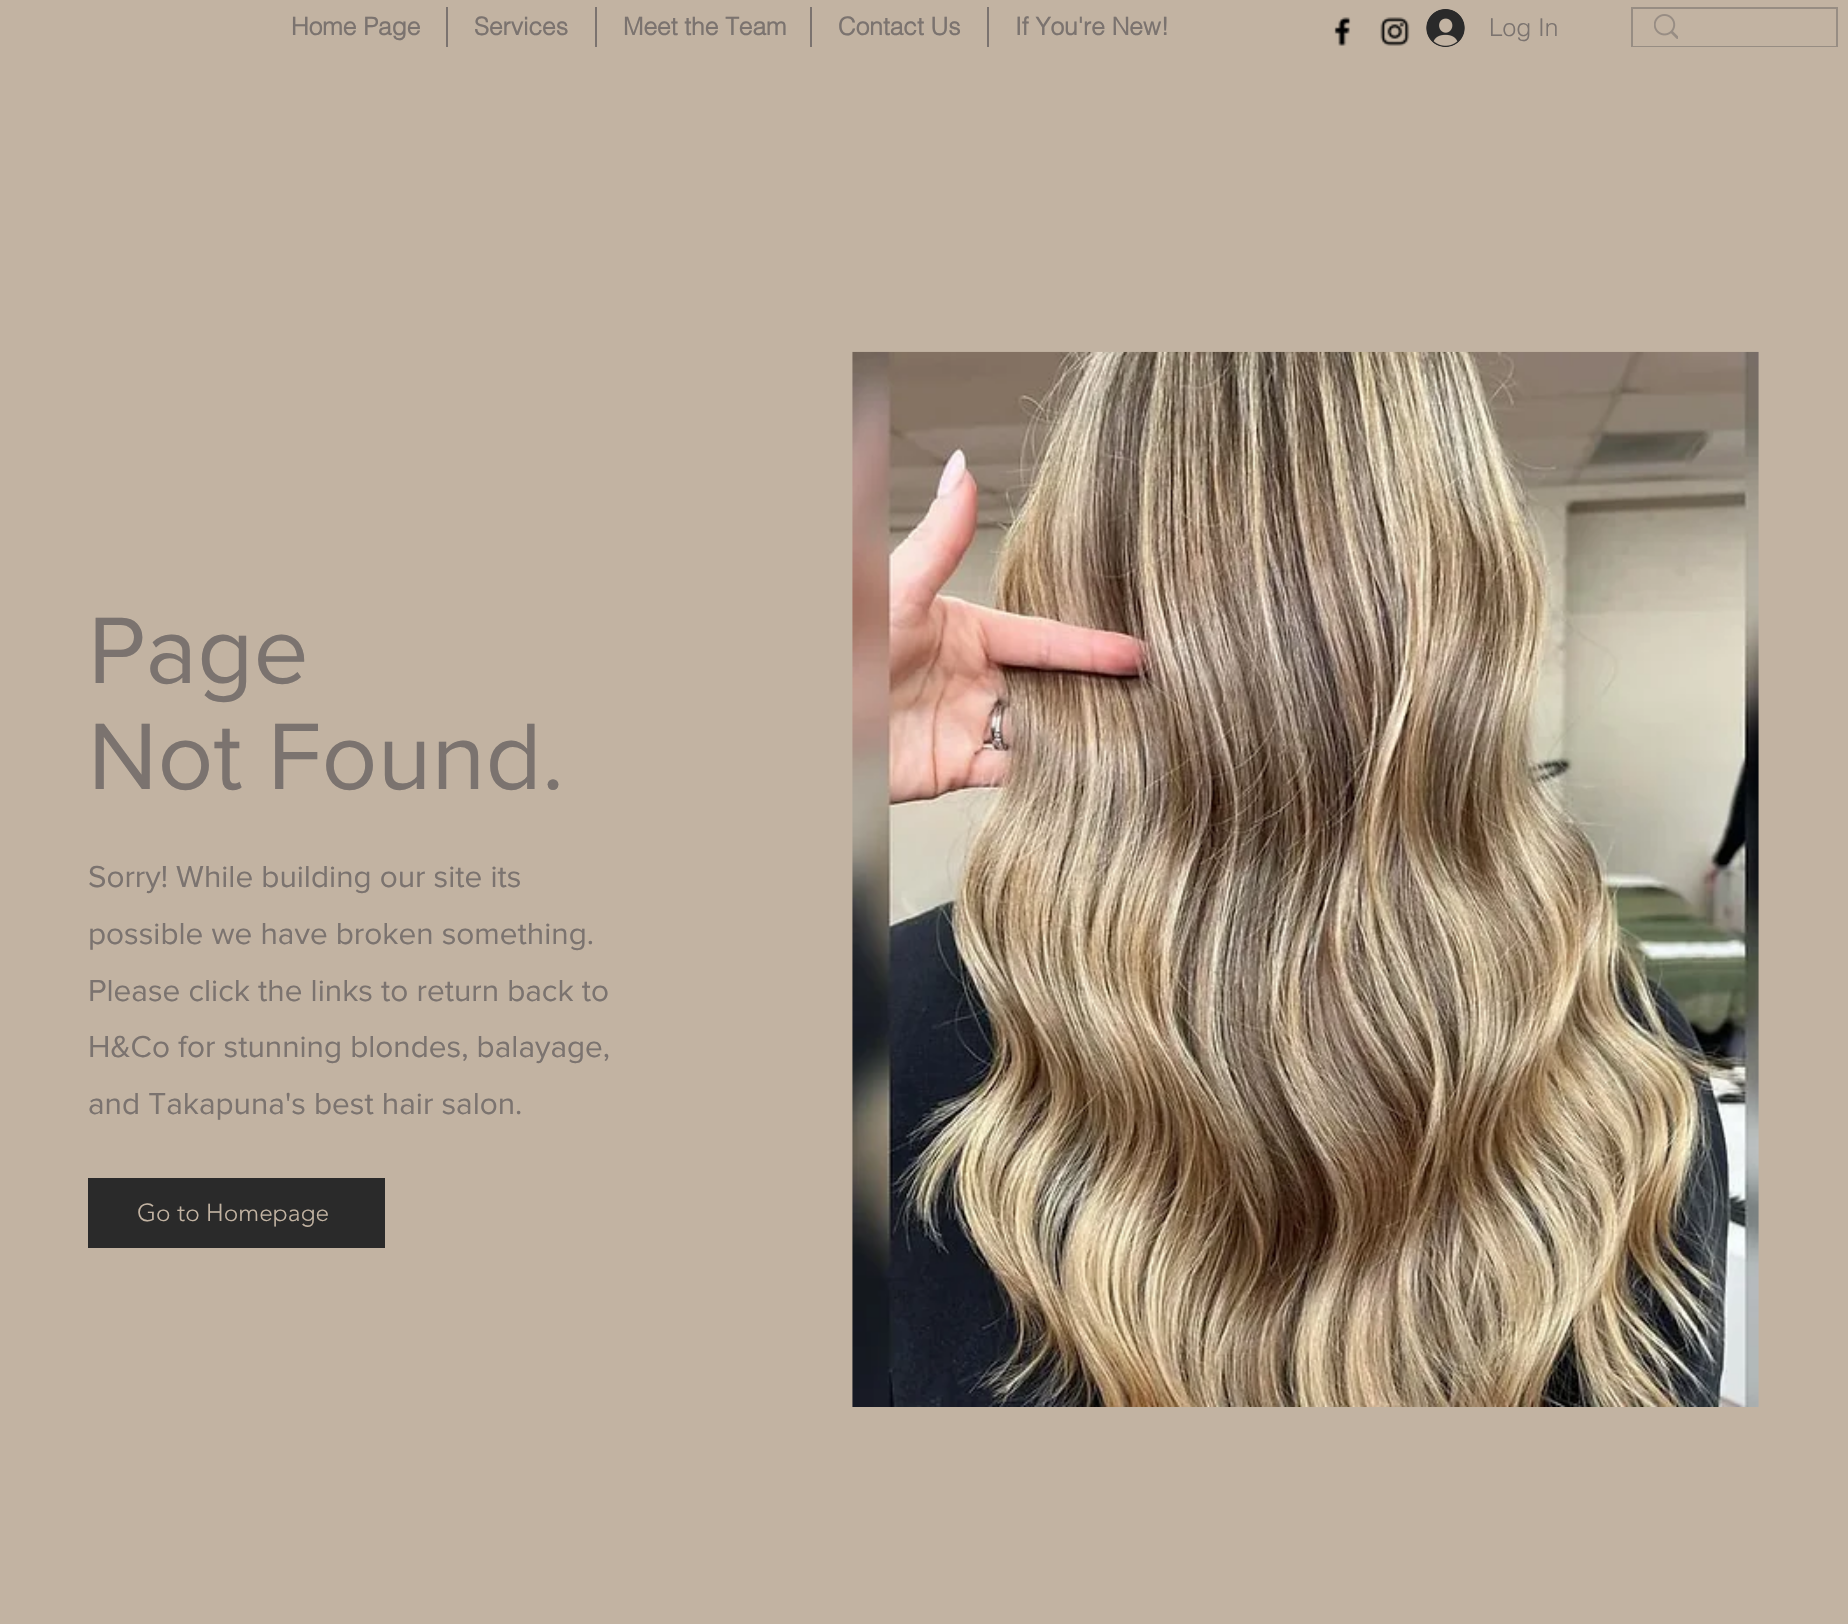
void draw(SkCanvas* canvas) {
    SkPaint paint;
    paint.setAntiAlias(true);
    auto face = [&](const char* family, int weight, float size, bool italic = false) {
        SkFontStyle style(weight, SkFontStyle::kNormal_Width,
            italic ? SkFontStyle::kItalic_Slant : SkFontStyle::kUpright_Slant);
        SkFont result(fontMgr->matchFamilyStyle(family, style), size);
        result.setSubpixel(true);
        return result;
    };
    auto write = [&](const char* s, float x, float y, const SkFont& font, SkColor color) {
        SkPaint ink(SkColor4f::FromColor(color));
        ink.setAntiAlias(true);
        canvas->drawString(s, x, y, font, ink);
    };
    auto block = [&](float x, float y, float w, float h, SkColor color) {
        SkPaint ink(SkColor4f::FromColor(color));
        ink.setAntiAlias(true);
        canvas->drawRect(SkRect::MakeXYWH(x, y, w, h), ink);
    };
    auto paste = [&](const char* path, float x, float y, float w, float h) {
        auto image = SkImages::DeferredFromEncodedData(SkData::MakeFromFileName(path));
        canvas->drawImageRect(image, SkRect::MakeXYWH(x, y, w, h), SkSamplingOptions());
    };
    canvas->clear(SkColorSetRGB(194, 179, 162));
    auto kFont1 = face("helvetica", 700, 24.5f);
    write("Home Page", 291, 35, kFont1, SkColorSetRGB(123, 115, 111));
    block(446, 7, 2, 40, SkColorSetRGB(123, 115, 111));
    write("Services", 474, 35, kFont1, SkColorSetRGB(123, 115, 111));
    block(595, 7, 2, 40, SkColorSetRGB(123, 115, 111));
    write("Meet the Team", 623, 35, kFont1, SkColorSetRGB(123, 115, 111));
    block(810, 7, 2, 40, SkColorSetRGB(123, 115, 111));
    write("Contact Us", 838, 35, kFont1, SkColorSetRGB(123, 115, 111));
    block(987, 7, 2, 40, SkColorSetRGB(123, 115, 111));
    write("If You're New!", 1015, 35, kFont1, SkColorSetRGB(123, 115, 111));
    paste("pic1.png", 1334, 17, 17, 29);
    paste("pic2.png", 1380, 17, 30, 29);
    paste("pic3.png", 1426, 9, 39, 38);
    auto kFont2 = face("helvetica", 300, 24.5f);
    write("Log In", 1489, 36, kFont2, SkColorSetRGB(123, 115, 111));
    paint.setStyle(SkPaint::kStroke_Style);
    paint.setStrokeWidth(2);
    paint.setColor(SkColorSetRGB(151, 141, 131));
    canvas->drawRect(SkRect::MakeXYWH(1632, 8, 205, 38), paint);
    block(1633, 45, 203, 1, SkColorSetRGB(194, 179, 162));
    paste("pic4.png", 1654, 14, 24, 25);
    auto kFont3 = face("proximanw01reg", 400, 98);
    write("Page", 88, 683, kFont3, SkColorSetRGB(123, 115, 111));
    write("Not Found.", 88, 789, kFont3, SkColorSetRGB(123, 115, 111));
    paste("pic5.png", 852, 351, 907, 1056);
    auto kFont4 = face("proximanw01reg", 400, 31.5f);
    write("Sorry! While building our site its", 88, 887, kFont4, SkColorSetRGB(123, 115, 111));
    write("possible we have broken something.", 88, 944, kFont4, SkColorSetRGB(123, 115, 111));
    write("Please click the links to return back to", 88, 1001, kFont4, SkColorSetRGB(123, 115, 111));
    write("H&Co for stunning blondes, balayage,", 88, 1057, kFont4, SkColorSetRGB(123, 115, 111));
    write("and Takapuna's best hair salon.", 88, 1114, kFont4, SkColorSetRGB(123, 115, 111));
    block(88, 1178, 297, 70, SkColorSetRGB(42, 42, 42));
    auto kFont5 = face("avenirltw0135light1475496", 300, 24.5f);
    write("Go to Homepage", 137, 1221, kFont5, SkColorSetRGB(194, 179, 162));
}
